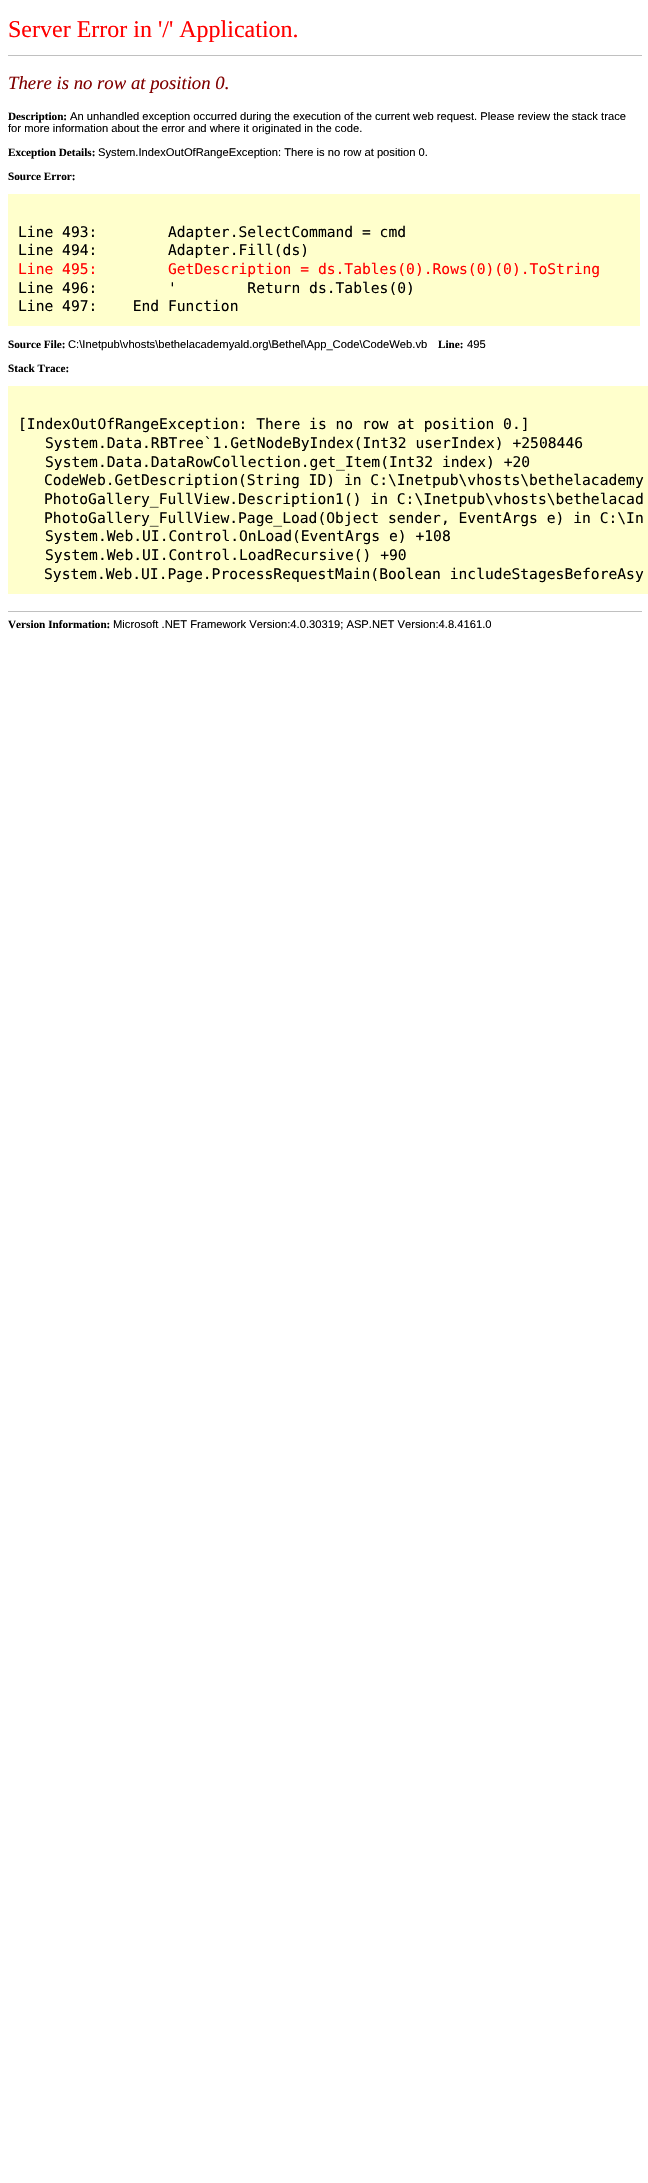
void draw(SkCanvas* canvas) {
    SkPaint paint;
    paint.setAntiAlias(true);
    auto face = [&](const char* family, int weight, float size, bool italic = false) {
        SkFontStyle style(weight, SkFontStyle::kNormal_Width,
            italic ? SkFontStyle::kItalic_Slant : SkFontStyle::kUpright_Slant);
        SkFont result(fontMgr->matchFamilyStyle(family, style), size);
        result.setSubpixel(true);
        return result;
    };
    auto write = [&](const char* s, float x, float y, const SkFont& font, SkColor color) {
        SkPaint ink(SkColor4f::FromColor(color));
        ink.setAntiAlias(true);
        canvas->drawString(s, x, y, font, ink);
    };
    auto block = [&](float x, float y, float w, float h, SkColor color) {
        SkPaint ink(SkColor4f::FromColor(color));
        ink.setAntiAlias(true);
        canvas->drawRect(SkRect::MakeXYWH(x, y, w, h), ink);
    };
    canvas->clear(SK_ColorWHITE);
    auto kFont1 = face("Liberation Serif", 400, 24);
    write("Server Error in '/' Application.", 8, 37, kFont1, SkColorSetRGB(255, 0, 0));
    block(8, 55, 634, 1, SkColorSetRGB(192, 192, 192));
    auto kFont2 = face("Liberation Serif", 400, 18.75f, true);
    write("There is no row at position 0.", 8, 89, kFont2, SkColorSetRGB(128, 0, 0));
    auto kFont3 = face("Liberation Serif", 700, 11.2f);
    write("Description:", 8, 120, kFont3, SK_ColorBLACK);
    auto kFont4 = face("Liberation Sans", 400, 11.2f);
    write("An unhandled exception occurred during the execution of the current web request. Please review the stack trace", 70, 120, kFont4, SK_ColorBLACK);
    write("for more information about the error and where it originated in the code.", 8, 132, kFont4, SK_ColorBLACK);
    write("Exception Details:", 8, 156, kFont3, SK_ColorBLACK);
    write("System.IndexOutOfRangeException: There is no row at position 0.", 98, 156, kFont4, SK_ColorBLACK);
    write("Source Error:", 8, 180, kFont3, SK_ColorBLACK);
    block(8, 194, 632, 132, SkColorSetRGB(255, 255, 204));
    auto kFont5 = face("DejaVu Sans Mono", 400, 14.65f);
    write("Line 493:        Adapter.SelectCommand = cmd", 18, 237, kFont5, SK_ColorBLACK);
    write("Line 494:        Adapter.Fill(ds)", 18, 255, kFont5, SK_ColorBLACK);
    write("Line 495:        GetDescription = ds.Tables(0).Rows(0)(0).ToString", 18, 274, kFont5, SkColorSetRGB(255, 0, 0));
    write("Line 496:        '        Return ds.Tables(0)", 18, 293, kFont5, SK_ColorBLACK);
    write("Line 497:    End Function", 18, 311, kFont5, SK_ColorBLACK);
    write("Source File:", 8, 348, kFont3, SK_ColorBLACK);
    write("C:\\Inetpub\\vhosts\\bethelacademyald.org\\Bethel\\App_Code\\CodeWeb.vb", 68, 348, kFont4, SK_ColorBLACK);
    write("Line:", 438, 348, kFont3, SK_ColorBLACK);
    write("495", 467, 348, kFont4, SK_ColorBLACK);
    write("Stack Trace:", 8, 372, kFont3, SK_ColorBLACK);
    block(8, 386, 640, 208, SkColorSetRGB(255, 255, 204));
    write("[IndexOutOfRangeException: There is no row at position 0.]", 18, 429, kFont5, SK_ColorBLACK);
    write("System.Data.RBTree`1.GetNodeByIndex(Int32 userIndex) +2508446", 45, 448, kFont5, SK_ColorBLACK);
    write("System.Data.DataRowCollection.get_Item(Int32 index) +20", 45, 467, kFont5, SK_ColorBLACK);
    write("CodeWeb.GetDescription(String ID) in C:\\Inetpub\\vhosts\\bethelacademy", 44, 485, kFont5, SK_ColorBLACK);
    write("PhotoGallery_FullView.Description1() in C:\\Inetpub\\vhosts\\bethelacad", 44, 504, kFont5, SK_ColorBLACK);
    write("PhotoGallery_FullView.Page_Load(Object sender, EventArgs e) in C:\\In", 44, 523, kFont5, SK_ColorBLACK);
    write("System.Web.UI.Control.OnLoad(EventArgs e) +108", 45, 541, kFont5, SK_ColorBLACK);
    write("System.Web.UI.Control.LoadRecursive() +90", 45, 560, kFont5, SK_ColorBLACK);
    write("System.Web.UI.Page.ProcessRequestMain(Boolean includeStagesBeforeAsy", 44, 579, kFont5, SK_ColorBLACK);
    block(8, 611, 634, 1, SkColorSetRGB(192, 192, 192));
    write("Version Information:", 8, 628, kFont3, SK_ColorBLACK);
    write("Microsoft .NET Framework Version:4.0.30319; ASP.NET Version:4.8.4161.0", 113, 628, kFont4, SK_ColorBLACK);
}
